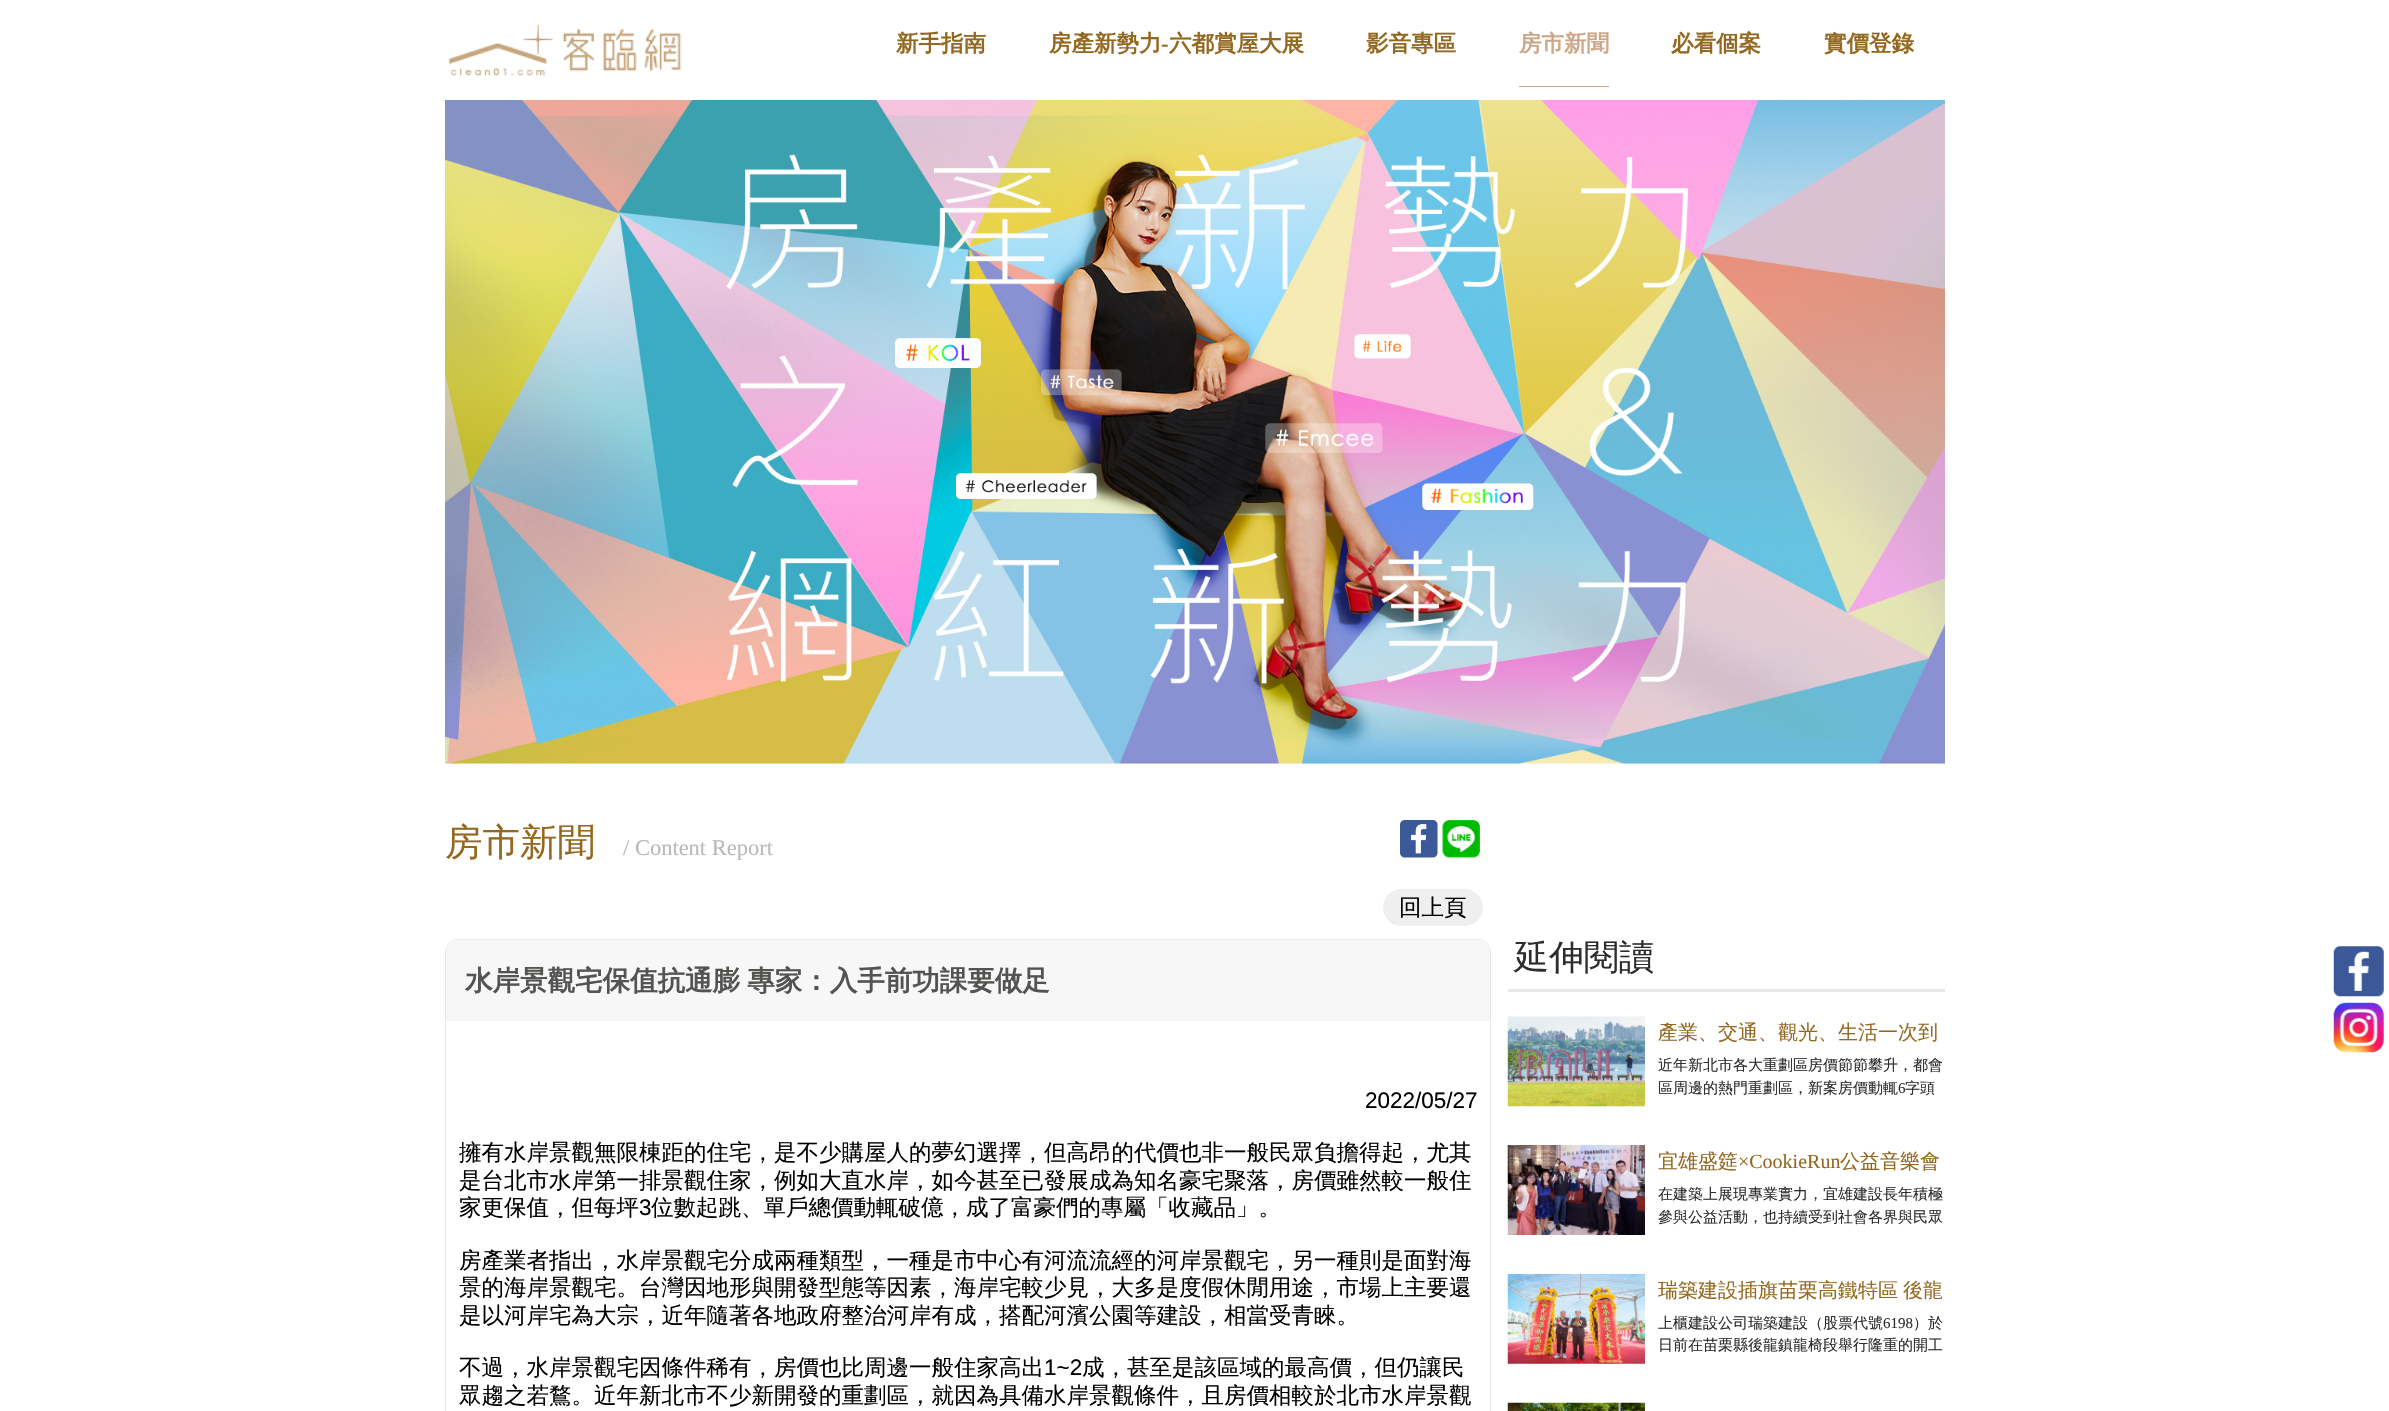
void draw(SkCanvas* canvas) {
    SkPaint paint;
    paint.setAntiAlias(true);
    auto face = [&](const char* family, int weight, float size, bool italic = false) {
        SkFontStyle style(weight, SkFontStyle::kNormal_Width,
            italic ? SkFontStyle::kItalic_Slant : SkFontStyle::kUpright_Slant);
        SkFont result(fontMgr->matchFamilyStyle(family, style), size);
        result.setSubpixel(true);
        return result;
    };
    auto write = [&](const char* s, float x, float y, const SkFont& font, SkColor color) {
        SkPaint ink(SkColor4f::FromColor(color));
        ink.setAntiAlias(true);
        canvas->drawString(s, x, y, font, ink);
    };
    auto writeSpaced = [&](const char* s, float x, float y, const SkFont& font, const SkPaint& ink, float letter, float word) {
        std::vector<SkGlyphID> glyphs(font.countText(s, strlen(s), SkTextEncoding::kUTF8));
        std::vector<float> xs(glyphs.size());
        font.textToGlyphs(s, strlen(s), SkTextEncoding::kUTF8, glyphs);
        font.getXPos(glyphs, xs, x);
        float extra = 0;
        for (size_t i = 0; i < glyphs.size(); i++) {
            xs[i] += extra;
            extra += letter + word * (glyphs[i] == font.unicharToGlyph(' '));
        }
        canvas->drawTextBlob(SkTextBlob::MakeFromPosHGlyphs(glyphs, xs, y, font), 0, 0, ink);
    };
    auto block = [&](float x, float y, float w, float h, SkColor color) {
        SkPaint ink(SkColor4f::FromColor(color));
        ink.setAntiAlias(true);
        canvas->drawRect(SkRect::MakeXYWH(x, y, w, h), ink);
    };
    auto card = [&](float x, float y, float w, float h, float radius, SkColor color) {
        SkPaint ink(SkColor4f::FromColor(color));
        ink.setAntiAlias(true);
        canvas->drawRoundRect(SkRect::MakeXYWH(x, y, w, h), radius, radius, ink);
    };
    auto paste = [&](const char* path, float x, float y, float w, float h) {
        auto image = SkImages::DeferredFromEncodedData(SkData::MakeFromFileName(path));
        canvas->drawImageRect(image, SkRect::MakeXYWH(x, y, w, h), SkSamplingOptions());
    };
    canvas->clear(SK_ColorWHITE);
    paste("pic1.png", 448, 24, 234, 53);
    auto kFont1 = face("WenQuanYi Zen Hei", 700, 22.5f);
    write("新手指南", 896, 51, kFont1, SkColorSetRGB(148, 104, 32));
    write("房產新勢力", 1049, 51, kFont1, SkColorSetRGB(148, 104, 32));
    auto kFont2 = face("Liberation Serif", 700, 22.5f);
    write("-", 1161, 51, kFont2, SkColorSetRGB(148, 104, 32));
    write("六都賞屋大展", 1169, 51, kFont1, SkColorSetRGB(148, 104, 32));
    write("影音專區", 1366, 51, kFont1, SkColorSetRGB(148, 104, 32));
    block(1519, 86, 90, 1, SkColorSetRGB(205, 167, 136));
    write("房市新聞", 1519, 51, kFont1, SkColorSetRGB(205, 167, 136));
    write("必看個案", 1671, 51, kFont1, SkColorSetRGB(148, 104, 32));
    write("實價登錄", 1824, 51, kFont1, SkColorSetRGB(148, 104, 32));
    paste("pic2.png", 445, 100, 1500, 664);
    auto kFont3 = face("WenQuanYi Zen Hei", 500, 37.5f);
    write("房市新聞", 445, 855, kFont3, SkColorSetRGB(148, 104, 32));
    auto kFont4 = face("Liberation Serif", 400, 22.5f);
    write("/ Content Report", 623, 855, kFont4, SkColorSetRGB(184, 184, 184));
    paste("pic3.png", 1400, 820, 38, 38);
    paste("pic4.png", 1442, 820, 38, 38);
    card(1383, 889, 100, 37, 18.5f, SkColorSetRGB(239, 239, 239));
    auto kFont5 = face("WenQuanYi Zen Hei", 500, 22.5f);
    write("回上頁", 1399, 915, kFont5, SK_ColorBLACK);
    paint.setStyle(SkPaint::kStroke_Style);
    paint.setStrokeWidth(1);
    paint.setColor(SkColorSetRGB(232, 232, 232));
    canvas->drawRoundRect(SkRect::MakeXYWH(445.5f, 939.5f, 1045, 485), 12.5f, 12.5f, paint);
    paint.setStyle(SkPaint::kFill_Style);
    paint.setColor(SkColorSetRGB(247, 247, 247));
    canvas->drawPath(SkPathBuilder().moveTo(457, 940).lineTo(1479, 940).cubicTo(1485, 940, 1490, 945, 1490, 951).lineTo(1490, 1021).lineTo(446, 1021).lineTo(446, 951).cubicTo(446, 945, 451, 940, 457, 940).close().detach(), paint);
    auto kFont6 = face("WenQuanYi Zen Hei", 700, 27.5f);
    paint.setColor(SkColorSetRGB(83, 83, 82));
    writeSpaced("水岸景觀宅保值抗通膨 專家：入手前功課要做足", 465, 990, kFont6, paint, 0, -1);
    auto kFont7 = face("Liberation Sans", 400, 22.5f);
    write("2022/05/27", 1365, 1108, kFont7, SK_ColorBLACK);
    write("擁有水岸景觀無限棟距的住宅，是不少購屋人的夢幻選擇，但高昂的代價也非一般民眾負擔得起，尤其", 459, 1160, kFont5, SK_ColorBLACK);
    write("是台北市水岸第一排景觀住家，例如大直水岸，如今甚至已發展成為知名豪宅聚落，房價雖然較一般住", 459, 1188, kFont5, SK_ColorBLACK);
    write("家更保值，但每坪", 459, 1215, kFont5, SK_ColorBLACK);
    write("3", 639, 1215, kFont7, SK_ColorBLACK);
    write("位數起跳、單戶總價動輒破億，成了富豪們的專屬「收藏品」。", 651, 1215, kFont5, SK_ColorBLACK);
    write("房產業者指出，水岸景觀宅分成兩種類型，一種是市中心有河流流經的河岸景觀宅，另一種則是面對海", 459, 1268, kFont5, SK_ColorBLACK);
    write("景的海岸景觀宅。台灣因地形與開發型態等因素，海岸宅較少見，大多是度假休閒用途，市場上主要還", 459, 1295, kFont5, SK_ColorBLACK);
    write("是以河岸宅為大宗，近年隨著各地政府整治河岸有成，搭配河濱公園等建設，相當受青睞。", 459, 1323, kFont5, SK_ColorBLACK);
    write("不過，水岸景觀宅因條件稀有，房價也比周邊一般住家高出", 459, 1375, kFont5, SK_ColorBLACK);
    write("1~2", 1044, 1375, kFont7, SK_ColorBLACK);
    write("成，甚至是該區域的最高價，但仍讓民", 1082, 1375, kFont5, SK_ColorBLACK);
    write("眾趨之若鶩。近年新北市不少新開發的重劃區，就因為具備水岸景觀條件，且房價相較於北市水岸景觀", 459, 1403, kFont5, SK_ColorBLACK);
    block(1508, 989, 437, 3, SkColorSetRGB(232, 232, 232));
    auto kFont8 = face("WenQuanYi Zen Hei", 500, 35);
    write("延伸閱讀", 1514, 969, kFont8, SkColorSetRGB(45, 45, 45));
    paste("pic5.png", 1507, 1016, 138, 91);
    auto kFont9 = face("WenQuanYi Zen Hei", 500, 20);
    write("產業、交通、觀光、生活一次到", 1658, 1039, kFont9, SkColorSetRGB(148, 104, 32));
    auto kFont10 = face("WenQuanYi Zen Hei", 500, 15);
    write("近年新北市各大重劃區房價節節攀升，都會", 1658, 1070, kFont10, SkColorSetRGB(45, 45, 45));
    write("區周邊的熱門重劃區，新案房價動輒", 1658, 1093, kFont10, SkColorSetRGB(45, 45, 45));
    auto kFont11 = face("Liberation Serif", 400, 15);
    write("6", 1898, 1093, kFont11, SkColorSetRGB(45, 45, 45));
    write("字頭", 1905, 1093, kFont10, SkColorSetRGB(45, 45, 45));
    paste("pic6.png", 1507, 1145, 138, 90);
    write("宜雄盛筵", 1658, 1168, kFont9, SkColorSetRGB(148, 104, 32));
    auto kFont12 = face("Liberation Serif", 400, 20);
    write("×CookieRun", 1738, 1168, kFont12, SkColorSetRGB(148, 104, 32));
    write("公益音樂會", 1840, 1168, kFont9, SkColorSetRGB(148, 104, 32));
    write("在建築上展現專業實力，宜雄建設長年積極", 1658, 1199, kFont10, SkColorSetRGB(45, 45, 45));
    write("參與公益活動，也持續受到社會各界與民眾", 1658, 1222, kFont10, SkColorSetRGB(45, 45, 45));
    paste("pic7.png", 1507, 1273, 138, 91);
    canvas->save();
    canvas->clipRect(SkRect::MakeXYWH(1658, 1274, 287, 31));
    paint.setColor(SkColorSetRGB(148, 104, 32));
    writeSpaced("瑞築建設插旗苗栗高鐵特區 後龍", 1658, 1297, kFont9, paint, 0, -1);
    canvas->restore();
    write("上櫃建設公司瑞築建設（股票代號", 1658, 1328, kFont10, SkColorSetRGB(45, 45, 45));
    write("6198", 1883, 1328, kFont11, SkColorSetRGB(45, 45, 45));
    write("）於", 1913, 1328, kFont10, SkColorSetRGB(45, 45, 45));
    write("日前在苗栗縣後龍鎮龍椅段舉行隆重的開工", 1658, 1350, kFont10, SkColorSetRGB(45, 45, 45));
    paste("pic8.png", 1507, 1402, 138, 9);
    paste("pic9.png", 2333, 946, 51, 51);
    paste("pic10.png", 2333, 1002, 51, 51);
}
